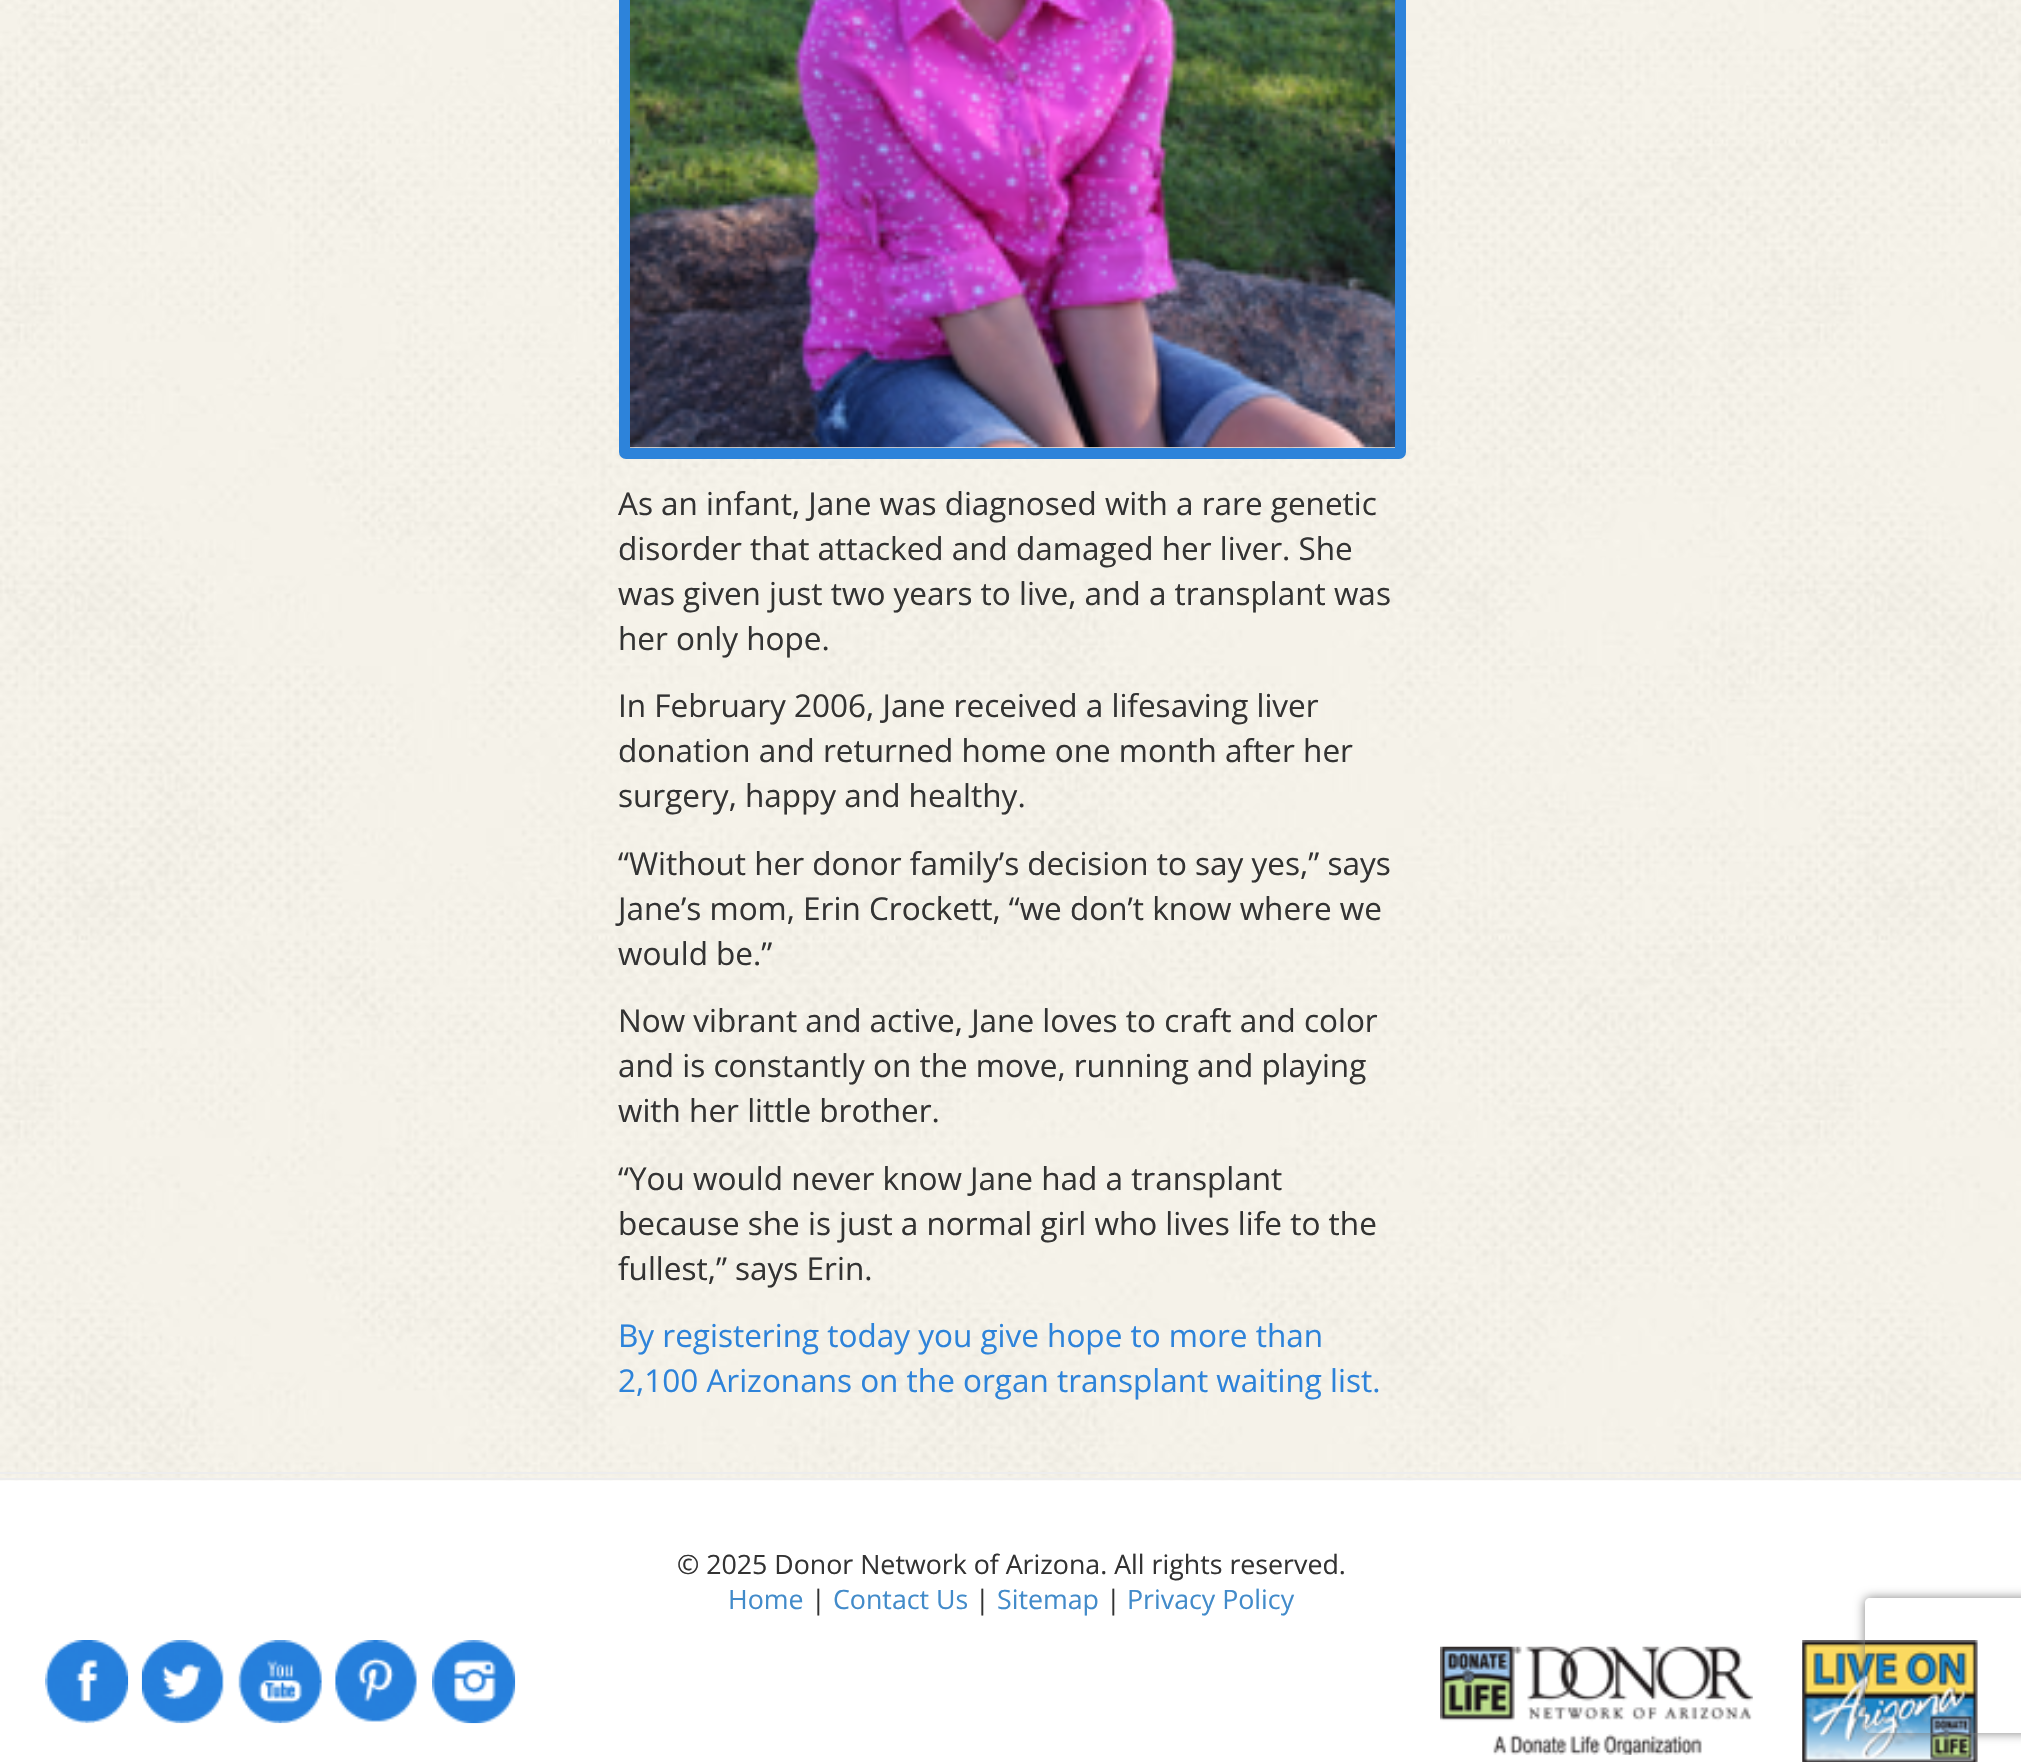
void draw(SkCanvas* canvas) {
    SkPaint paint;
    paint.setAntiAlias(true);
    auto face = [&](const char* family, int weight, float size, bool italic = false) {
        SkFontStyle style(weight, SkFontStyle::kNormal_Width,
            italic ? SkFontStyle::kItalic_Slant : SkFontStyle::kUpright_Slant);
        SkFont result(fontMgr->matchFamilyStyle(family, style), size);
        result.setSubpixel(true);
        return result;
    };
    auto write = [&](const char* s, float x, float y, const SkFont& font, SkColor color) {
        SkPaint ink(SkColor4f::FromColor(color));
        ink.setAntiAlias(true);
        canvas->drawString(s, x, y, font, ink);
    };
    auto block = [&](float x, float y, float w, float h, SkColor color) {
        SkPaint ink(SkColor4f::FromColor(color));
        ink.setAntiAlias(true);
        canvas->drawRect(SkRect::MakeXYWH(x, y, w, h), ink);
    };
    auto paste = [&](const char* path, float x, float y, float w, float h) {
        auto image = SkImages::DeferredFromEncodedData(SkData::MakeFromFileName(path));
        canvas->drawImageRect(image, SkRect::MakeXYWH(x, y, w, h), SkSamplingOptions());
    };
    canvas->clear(SK_ColorWHITE);
    paste("pic1.png", 0, 0, 2021, 1481);
    block(0, 1472, 2021, 2, SkColorSetRGB(237, 237, 237));
    block(0, 1478, 2021, 2, SkColorSetRGB(237, 237, 237));
    paint.setStyle(SkPaint::kStroke_Style);
    paint.setStrokeWidth(11);
    paint.setColor(SkColorSetRGB(45, 131, 218));
    canvas->drawRoundRect(SkRect::MakeXYWH(624.5f, -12.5f, 776, 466), 1.5f, 1.5f, paint);
    paste("pic2.png", 630, 0, 765, 448);
    auto kFont1 = face("Open Sans", 400, 31.5f);
    write("As an infant, Jane was diagnosed with a rare genetic", 618, 515, kFont1, SkColorSetRGB(51, 51, 51));
    write("disorder that attacked and damaged her liver. She", 618, 560, kFont1, SkColorSetRGB(51, 51, 51));
    write("was given just two years to live, and a transplant was", 618, 605, kFont1, SkColorSetRGB(51, 51, 51));
    write("her only hope.", 618, 650, kFont1, SkColorSetRGB(51, 51, 51));
    write("In February 2006, Jane received a lifesaving liver", 618, 717, kFont1, SkColorSetRGB(51, 51, 51));
    write("donation and returned home one month after her", 618, 762, kFont1, SkColorSetRGB(51, 51, 51));
    write("surgery, happy and healthy.", 618, 807, kFont1, SkColorSetRGB(51, 51, 51));
    write("“Without her donor family’s decision to say yes,” says", 618, 875, kFont1, SkColorSetRGB(51, 51, 51));
    write("Jane’s mom, Erin Crockett, “we don’t know where we", 618, 920, kFont1, SkColorSetRGB(51, 51, 51));
    write("would be.”", 618, 965, kFont1, SkColorSetRGB(51, 51, 51));
    write("Now vibrant and active, Jane loves to craft and color", 618, 1032, kFont1, SkColorSetRGB(51, 51, 51));
    write("and is constantly on the move, running and playing", 618, 1077, kFont1, SkColorSetRGB(51, 51, 51));
    write("with her little brother.", 618, 1122, kFont1, SkColorSetRGB(51, 51, 51));
    write("“You would never know Jane had a transplant", 618, 1190, kFont1, SkColorSetRGB(51, 51, 51));
    write("because she is just a normal girl who lives life to the", 618, 1235, kFont1, SkColorSetRGB(51, 51, 51));
    write("fullest,” says Erin.", 618, 1280, kFont1, SkColorSetRGB(51, 51, 51));
    write("By registering today you give hope to more than", 618, 1347, kFont1, SkColorSetRGB(45, 131, 218));
    write("2,100 Arizonans on the organ transplant waiting list.", 618, 1392, kFont1, SkColorSetRGB(45, 131, 218));
    auto kFont2 = face("Open Sans", 400, 26.75f);
    write("© 2025 Donor Network of Arizona. All rights reserved.", 677, 1574, kFont2, SkColorSetRGB(51, 51, 51));
    write("Home", 728, 1609, kFont2, SkColorSetRGB(66, 139, 202));
    write("|", 811, 1609, kFont2, SkColorSetRGB(51, 51, 51));
    write("Contact Us", 833, 1609, kFont2, SkColorSetRGB(66, 139, 202));
    write("|", 975, 1609, kFont2, SkColorSetRGB(51, 51, 51));
    write("Sitemap", 997, 1609, kFont2, SkColorSetRGB(66, 139, 202));
    write("|", 1106, 1609, kFont2, SkColorSetRGB(51, 51, 51));
    write("Privacy Policy", 1127, 1609, kFont2, SkColorSetRGB(66, 139, 202));
    paste("pic3.png", 45, 1640, 84, 84);
    paste("pic4.png", 141, 1640, 83, 84);
    paste("pic5.png", 238, 1640, 84, 84);
    paste("pic6.png", 335, 1640, 82, 82);
    paste("pic7.png", 432, 1640, 84, 84);
    paste("pic8.png", 1440, 1646, 313, 109);
    paste("pic9.png", 1802, 1640, 176, 122);
    canvas->save();
    canvas->clipPath(SkPathBuilder(SkPathFillType::kEvenOdd).moveTo(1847, 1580).lineTo(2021, 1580).lineTo(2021, 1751).lineTo(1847, 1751).close().moveTo(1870, 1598).lineTo(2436, 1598).cubicTo(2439, 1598, 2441, 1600, 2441, 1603).lineTo(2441, 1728).cubicTo(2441, 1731, 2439, 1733, 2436, 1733).lineTo(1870, 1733).cubicTo(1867, 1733, 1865, 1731, 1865, 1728).lineTo(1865, 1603).cubicTo(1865, 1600, 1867, 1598, 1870, 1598).close().detach(), true);
    paint.setStyle(SkPaint::kFill_Style);
    paint.setColor(SkColorSetRGB(128, 128, 128));
    paint.setMaskFilter(SkMaskFilter::MakeBlur(kNormal_SkBlurStyle, 5.5f));
    canvas->drawRoundRect(SkRect::MakeXYWH(1865, 1598, 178, 135), 5, 5, paint);
    paint.setMaskFilter(nullptr);
    canvas->restore();
}
